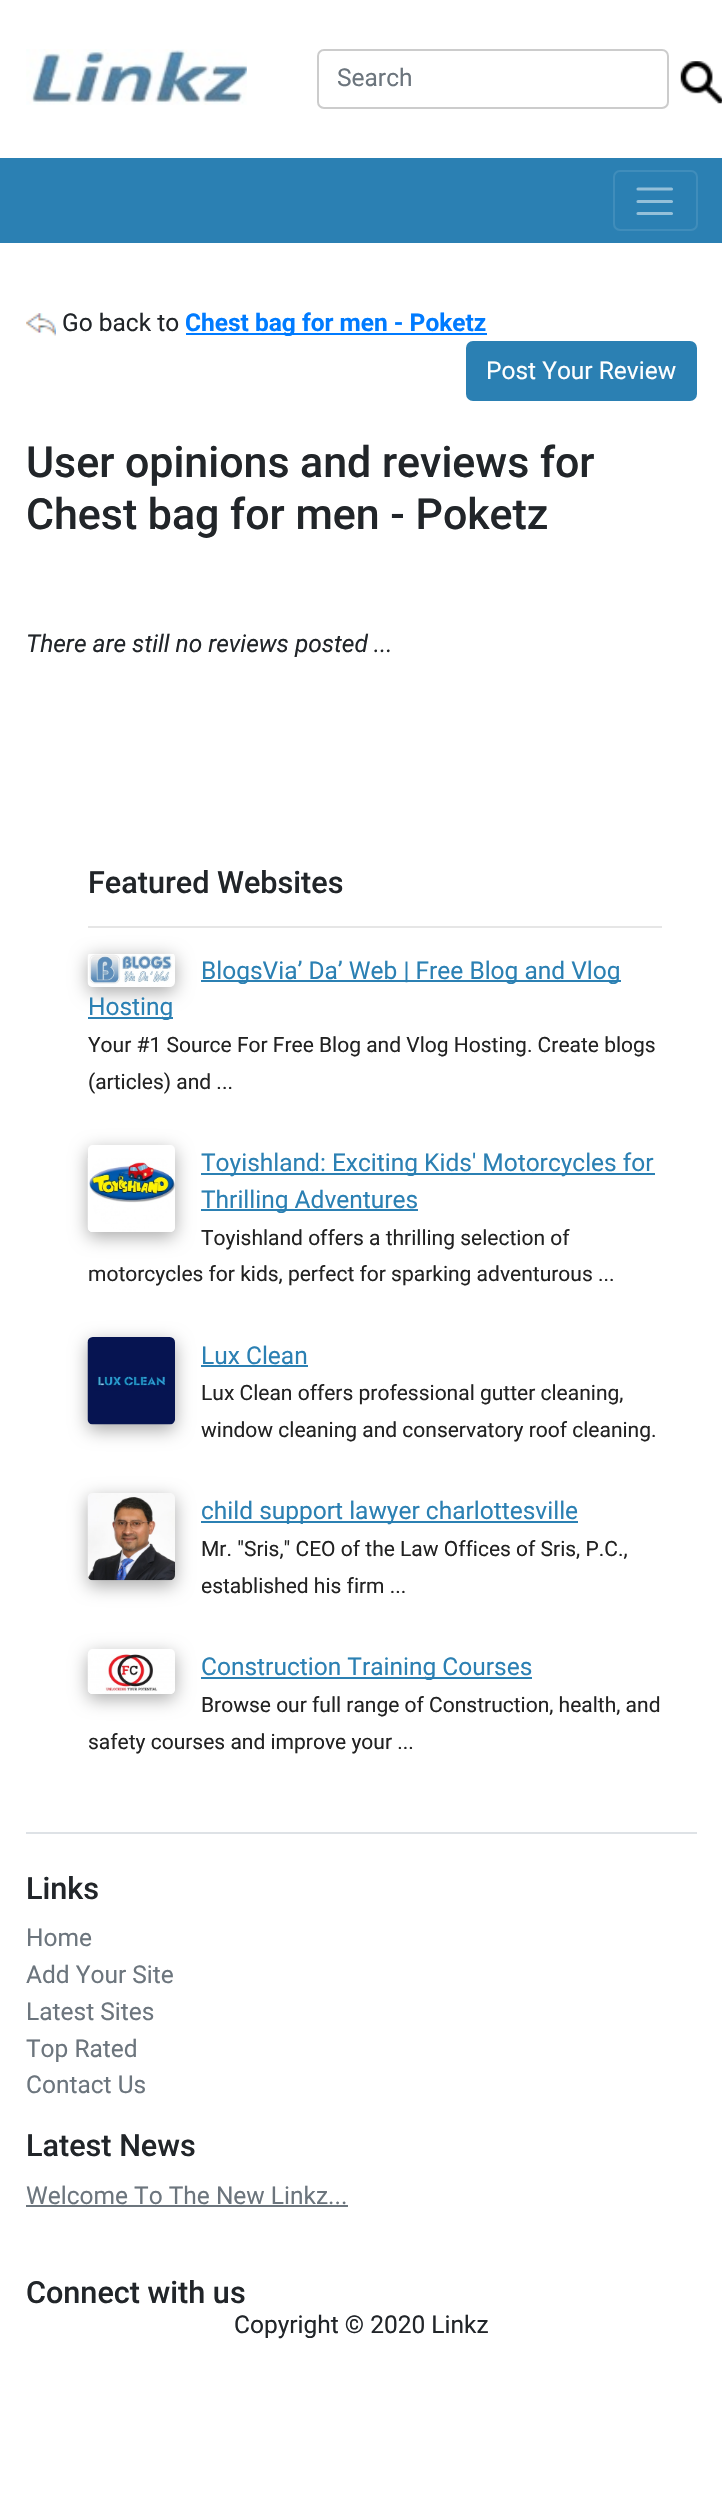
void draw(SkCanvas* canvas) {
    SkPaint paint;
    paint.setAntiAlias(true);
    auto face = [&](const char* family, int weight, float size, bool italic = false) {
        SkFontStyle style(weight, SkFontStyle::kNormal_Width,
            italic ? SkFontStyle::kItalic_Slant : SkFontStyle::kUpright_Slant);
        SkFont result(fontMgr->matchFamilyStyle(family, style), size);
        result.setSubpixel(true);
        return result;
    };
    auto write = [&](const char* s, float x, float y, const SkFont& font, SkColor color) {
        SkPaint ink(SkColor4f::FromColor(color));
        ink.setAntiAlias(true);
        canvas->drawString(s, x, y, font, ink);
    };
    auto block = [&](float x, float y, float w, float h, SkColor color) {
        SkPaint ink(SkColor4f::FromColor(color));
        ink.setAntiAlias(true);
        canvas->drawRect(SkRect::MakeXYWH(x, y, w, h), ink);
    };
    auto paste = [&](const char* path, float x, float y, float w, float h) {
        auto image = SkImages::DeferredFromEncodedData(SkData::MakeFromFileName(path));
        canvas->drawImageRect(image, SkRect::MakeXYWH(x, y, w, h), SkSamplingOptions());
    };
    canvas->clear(SK_ColorWHITE);
    paste("pic1.png", 26, 49, 221, 56);
    paint.setStyle(SkPaint::kStroke_Style);
    paint.setStrokeWidth(2);
    paint.setColor(SkColorSetRGB(204, 204, 204));
    canvas->drawRoundRect(SkRect::MakeXYWH(318, 50, 350, 58), 6, 6, paint);
    auto kFont1 = face("Roboto", 400, 24.5f);
    write("Search", 337, 86, kFont1, SkColorSetRGB(108, 117, 125));
    paste("pic2.png", 680, 61, 42, 43);
    block(0, 158, 722, 85, SkColorSetRGB(43, 128, 179));
    paint.setColor(SkColorSetRGB(64, 141, 187));
    canvas->drawRoundRect(SkRect::MakeXYWH(614, 171, 83, 59), 6, 6, paint);
    paint.setStrokeWidth(3.1f);
    paint.setStrokeCap(SkPaint::kRound_Cap);
    paint.setColor(SkColorSetRGB(149, 192, 217));
    canvas->drawPath(SkPathBuilder().moveTo(638, 189).lineTo(671.5f, 189).moveTo(638, 201.5f).lineTo(671.5f, 201.5f).moveTo(638, 213.5f).lineTo(671.5f, 213.5f).detach(), paint);
    paste("pic3.png", 26, 313, 30, 23);
    write("Go back to", 62, 331, kFont1, SkColorSetRGB(33, 37, 41));
    block(186, 333, 301, 2, SkColorSetRGB(0, 123, 255));
    auto kFont2 = face("Roboto", 700, 24.5f);
    write("Chest bag for men - Poketz", 185, 331, kFont2, SkColorSetRGB(0, 123, 255));
    paint.setStyle(SkPaint::kFill_Style);
    paint.setColor(SkColorSetRGB(43, 128, 179));
    canvas->drawRoundRect(SkRect::MakeXYWH(467, 342, 229, 58), 6, 6, paint);
    paint.setStyle(SkPaint::kStroke_Style);
    paint.setStrokeWidth(2);
    paint.setStrokeCap(SkPaint::kButt_Cap);
    canvas->drawRoundRect(SkRect::MakeXYWH(467, 342, 229, 58), 6, 6, paint);
    write("Post Your Review", 486, 379, kFont1, SK_ColorWHITE);
    auto kFont3 = face("Roboto", 500, 42.9f);
    write("User opinions and reviews for", 26, 477, kFont3, SkColorSetRGB(33, 37, 41));
    write("Chest bag for men - Poketz", 26, 529, kFont3, SkColorSetRGB(33, 37, 41));
    auto kFont4 = face("Roboto", 400, 24.5f, true);
    write("There are still no reviews posted ...", 26, 652, kFont4, SkColorSetRGB(33, 37, 41));
    auto kFont5 = face("Roboto", 500, 30.6f);
    write("Featured Websites", 88, 893, kFont5, SkColorSetRGB(33, 37, 41));
    block(88, 926, 574, 2, SkColorSetRGB(230, 230, 230));
    paint.setStyle(SkPaint::kFill_Style);
    paint.setColor(SkColorSetRGB(170, 170, 170));
    paint.setMaskFilter(SkMaskFilter::MakeBlur(kNormal_SkBlurStyle, 9));
    canvas->drawRoundRect(SkRect::MakeXYWH(88, 957, 87, 35), 5, 5, paint);
    paint.setMaskFilter(nullptr);
    paste("pic4.png", 87, 954, 88, 33);
    block(201, 980, 420, 2, SkColorSetRGB(43, 128, 179));
    write("BlogsVia’ Da’ Web | Free Blog and Vlog", 201, 979, kFont1, SkColorSetRGB(43, 128, 179));
    block(88, 1017, 85, 2, SkColorSetRGB(43, 128, 179));
    write("Hosting", 88, 1015, kFont1, SkColorSetRGB(43, 128, 179));
    auto kFont6 = face("Roboto", 400, 21);
    write("Your #1 Source For Free Blog and Vlog Hosting. Create blogs", 88, 1052, kFont6, SkColorSetRGB(34, 34, 34));
    write("(articles) and ...", 88, 1089, kFont6, SkColorSetRGB(34, 34, 34));
    canvas->save();
    canvas->clipPath(SkPathBuilder(SkPathFillType::kEvenOdd).moveTo(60, 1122).lineTo(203, 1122).lineTo(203, 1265).lineTo(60, 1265).close().moveTo(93, 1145).lineTo(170, 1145).cubicTo(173, 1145, 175, 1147, 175, 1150).lineTo(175, 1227).cubicTo(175, 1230, 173, 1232, 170, 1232).lineTo(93, 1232).cubicTo(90, 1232, 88, 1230, 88, 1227).lineTo(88, 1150).cubicTo(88, 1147, 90, 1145, 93, 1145).close().detach(), true);
    paint.setMaskFilter(SkMaskFilter::MakeBlur(kNormal_SkBlurStyle, 9));
    canvas->drawRoundRect(SkRect::MakeXYWH(88, 1150, 87, 87), 5, 5, paint);
    paint.setMaskFilter(nullptr);
    canvas->restore();
    paste("pic5.png", 87, 1158, 88, 74);
    block(201, 1173, 454, 2, SkColorSetRGB(43, 128, 179));
    write("Toyishland: Exciting Kids' Motorcycles for", 201, 1171, kFont1, SkColorSetRGB(43, 128, 179));
    block(201, 1209, 217, 2, SkColorSetRGB(43, 128, 179));
    write("Thrilling Adventures", 201, 1208, kFont1, SkColorSetRGB(43, 128, 179));
    write("Toyishland offers a thrilling selection of", 201, 1245, kFont6, SkColorSetRGB(34, 34, 34));
    write("motorcycles for kids, perfect for sparking adventurous ...", 88, 1281, kFont6, SkColorSetRGB(34, 34, 34));
    paint.setMaskFilter(SkMaskFilter::MakeBlur(kNormal_SkBlurStyle, 9));
    canvas->drawRoundRect(SkRect::MakeXYWH(88, 1342, 87, 88), 5, 5, paint);
    paint.setMaskFilter(nullptr);
    paste("pic6.png", 87, 1337, 88, 88);
    write("Lux Clean", 201, 1364, kFont1, SkColorSetRGB(43, 128, 179));
    block(201, 1365, 107, 2, SkColorSetRGB(43, 128, 179));
    write("Lux Clean offers professional gutter cleaning,", 201, 1400, kFont6, SkColorSetRGB(34, 34, 34));
    write("window cleaning and conservatory roof cleaning.", 201, 1437, kFont6, SkColorSetRGB(34, 34, 34));
    paint.setMaskFilter(SkMaskFilter::MakeBlur(kNormal_SkBlurStyle, 9));
    canvas->drawRoundRect(SkRect::MakeXYWH(88, 1498, 87, 88), 5, 5, paint);
    paint.setMaskFilter(nullptr);
    paste("pic7.png", 87, 1493, 88, 88);
    block(201, 1521, 377, 2, SkColorSetRGB(43, 128, 179));
    write("child support lawyer charlottesville", 201, 1519, kFont1, SkColorSetRGB(43, 128, 179));
    write("Mr. \"Sris,\" CEO of the Law Offices of Sris, P.C.,", 201, 1556, kFont6, SkColorSetRGB(34, 34, 34));
    write("established his firm ...", 201, 1593, kFont6, SkColorSetRGB(34, 34, 34));
    canvas->save();
    canvas->clipPath(SkPathBuilder(SkPathFillType::kEvenOdd).moveTo(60, 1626).lineTo(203, 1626).lineTo(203, 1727).lineTo(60, 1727).close().moveTo(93, 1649).lineTo(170, 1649).cubicTo(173, 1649, 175, 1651, 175, 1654).lineTo(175, 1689).cubicTo(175, 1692, 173, 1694, 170, 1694).lineTo(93, 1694).cubicTo(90, 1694, 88, 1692, 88, 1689).lineTo(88, 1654).cubicTo(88, 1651, 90, 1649, 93, 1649).close().detach(), true);
    paint.setMaskFilter(SkMaskFilter::MakeBlur(kNormal_SkBlurStyle, 9));
    canvas->drawRoundRect(SkRect::MakeXYWH(88, 1654, 87, 45), 5, 5, paint);
    paint.setMaskFilter(nullptr);
    canvas->restore();
    paste("pic8.png", 87, 1654, 88, 40);
    block(201, 1677, 331, 2, SkColorSetRGB(43, 128, 179));
    write("Construction Training Courses", 201, 1675, kFont1, SkColorSetRGB(43, 128, 179));
    write("Browse our full range of Construction, health, and", 201, 1712, kFont6, SkColorSetRGB(34, 34, 34));
    write("safety courses and improve your ...", 88, 1749, kFont6, SkColorSetRGB(34, 34, 34));
    block(26, 1832, 671, 2, SkColorSetRGB(222, 226, 230));
    write("Links", 26, 1899, kFont5, SkColorSetRGB(33, 37, 41));
    write("Home", 26, 1946, kFont1, SkColorSetRGB(108, 117, 125));
    write("Add Your Site", 26, 1983, kFont1, SkColorSetRGB(108, 117, 125));
    write("Latest Sites", 26, 2020, kFont1, SkColorSetRGB(108, 117, 125));
    write("Top Rated", 26, 2057, kFont1, SkColorSetRGB(108, 117, 125));
    write("Contact Us", 26, 2093, kFont1, SkColorSetRGB(108, 117, 125));
    write("Latest News", 26, 2156, kFont5, SkColorSetRGB(33, 37, 41));
    write("Welcome To The New Linkz...", 26, 2204, kFont1, SkColorSetRGB(108, 117, 125));
    block(26, 2205, 322, 2, SkColorSetRGB(108, 117, 125));
    write("Connect with us", 26, 2303, kFont5, SkColorSetRGB(33, 37, 41));
    write("Copyright © 2020 Linkz", 234, 2333, kFont1, SkColorSetRGB(33, 37, 41));
}
